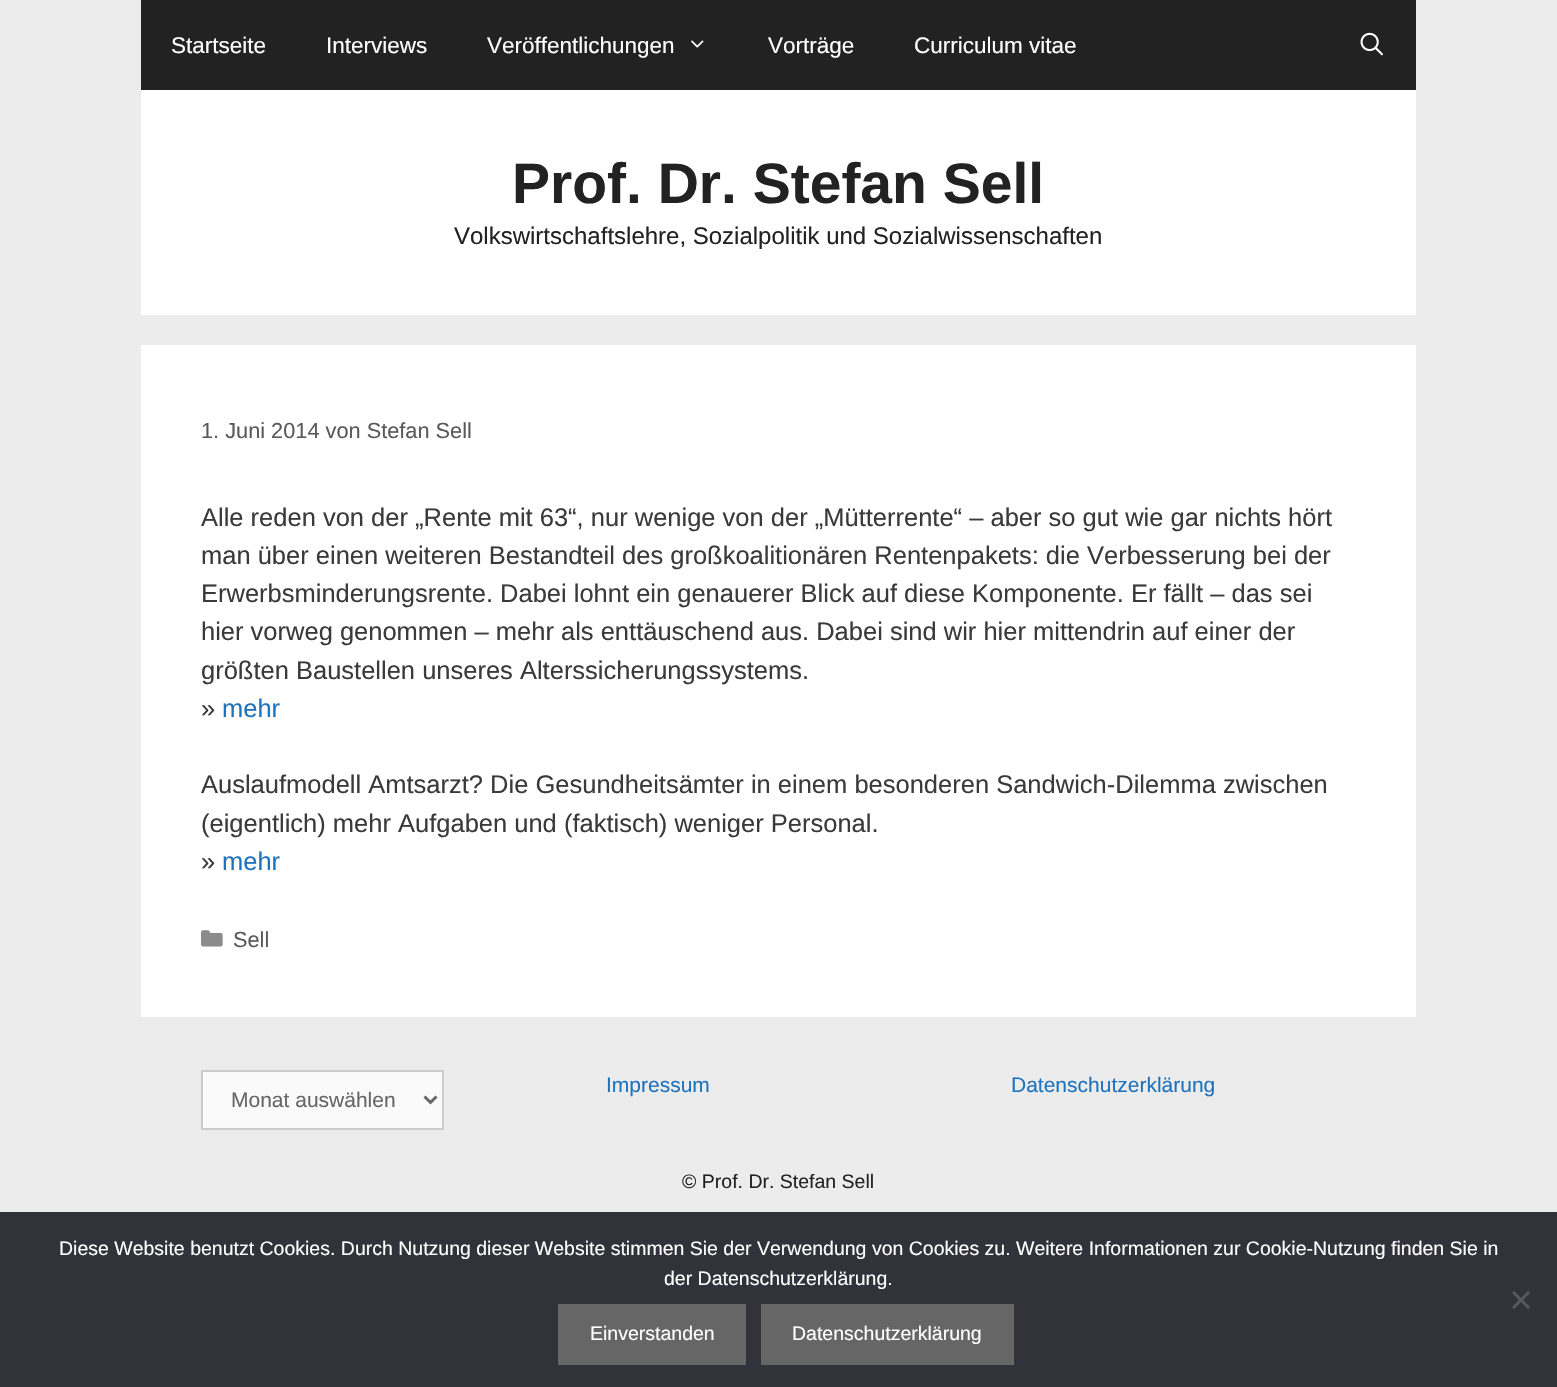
void draw(SkCanvas* canvas) {
    SkPaint paint;
    paint.setAntiAlias(true);
    auto face = [&](const char* family, int weight, float size, bool italic = false) {
        SkFontStyle style(weight, SkFontStyle::kNormal_Width,
            italic ? SkFontStyle::kItalic_Slant : SkFontStyle::kUpright_Slant);
        SkFont result(fontMgr->matchFamilyStyle(family, style), size);
        result.setSubpixel(true);
        return result;
    };
    auto write = [&](const char* s, float x, float y, const SkFont& font, SkColor color) {
        SkPaint ink(SkColor4f::FromColor(color));
        ink.setAntiAlias(true);
        canvas->drawString(s, x, y, font, ink);
    };
    auto block = [&](float x, float y, float w, float h, SkColor color) {
        SkPaint ink(SkColor4f::FromColor(color));
        ink.setAntiAlias(true);
        canvas->drawRect(SkRect::MakeXYWH(x, y, w, h), ink);
    };
    auto paste = [&](const char* path, float x, float y, float w, float h) {
        auto image = SkImages::DeferredFromEncodedData(SkData::MakeFromFileName(path));
        canvas->drawImageRect(image, SkRect::MakeXYWH(x, y, w, h), SkSamplingOptions());
    };
    canvas->clear(SkColorSetRGB(236, 236, 236));
    block(141, 0, 1275, 90, SkColorSetRGB(34, 34, 34));
    auto kFont1 = face("Liberation Sans", 400, 22.5f);
    write("Startseite", 171, 53, kFont1, SK_ColorWHITE);
    write("Interviews", 326, 53, kFont1, SK_ColorWHITE);
    write("Veröffentlichungen", 487, 53, kFont1, SK_ColorWHITE);
    paste("pic1.png", 691, 40, 13, 8);
    write("Vorträge", 768, 53, kFont1, SK_ColorWHITE);
    write("Curriculum vitae", 914, 53, kFont1, SK_ColorWHITE);
    paste("pic2.png", 1360, 32, 23, 24);
    block(141, 90, 1275, 225, SK_ColorWHITE);
    auto kFont2 = face("Liberation Sans", 700, 57);
    write("Prof. Dr. Stefan Sell", 512, 203, kFont2, SkColorSetRGB(34, 34, 34));
    auto kFont3 = face("Liberation Sans", 400, 24);
    write("Volkswirtschaftslehre, Sozialpolitik und Sozialwissenschaften", 454, 244, kFont3, SkColorSetRGB(34, 34, 34));
    block(141, 345, 1275, 672, SK_ColorWHITE);
    auto kFont4 = face("Liberation Sans", 400, 21.75f);
    write("1. Juni 2014 von Stefan Sell", 201, 438, kFont4, SkColorSetRGB(89, 89, 89));
    auto kFont5 = face("Liberation Sans", 400, 25.5f);
    write("Alle reden von der „Rente mit 63“, nur wenige von der „Mütterrente“ – aber so gut wie gar nichts hört", 201, 526, kFont5, SkColorSetRGB(58, 58, 58));
    write("man über einen weiteren Bestandteil des großkoalitionären Rentenpakets: die Verbesserung bei der", 201, 564, kFont5, SkColorSetRGB(58, 58, 58));
    write("Erwerbsminderungsrente. Dabei lohnt ein genauerer Blick auf diese Komponente. Er fällt – das sei", 201, 602, kFont5, SkColorSetRGB(58, 58, 58));
    write("hier vorweg genommen – mehr als enttäuschend aus. Dabei sind wir hier mittendrin auf einer der", 201, 640, kFont5, SkColorSetRGB(58, 58, 58));
    write("größten Baustellen unseres Alterssicherungssystems.", 201, 679, kFont5, SkColorSetRGB(58, 58, 58));
    write("»", 201, 717, kFont5, SkColorSetRGB(58, 58, 58));
    write("mehr", 222, 717, kFont5, SkColorSetRGB(30, 115, 190));
    write("Auslaufmodell Amtsarzt? Die Gesundheitsämter in einem besonderen Sandwich-Dilemma zwischen", 201, 793, kFont5, SkColorSetRGB(58, 58, 58));
    write("(eigentlich) mehr Aufgaben und (faktisch) weniger Personal.", 201, 832, kFont5, SkColorSetRGB(58, 58, 58));
    write("»", 201, 870, kFont5, SkColorSetRGB(58, 58, 58));
    write("mehr", 222, 870, kFont5, SkColorSetRGB(30, 115, 190));
    paste("pic3.png", 201, 930, 22, 17);
    write("Sell", 233, 947, kFont4, SkColorSetRGB(89, 89, 89));
    auto kFont6 = face("Liberation Sans", 400, 21);
    write("Impressum", 606, 1092, kFont6, SkColorSetRGB(30, 115, 190));
    write("Datenschutzerklärung", 1011, 1092, kFont6, SkColorSetRGB(30, 115, 190));
    paint.setColor(SkColorSetRGB(250, 250, 250));
    canvas->drawRect(SkRect::MakeXYWH(202, 1071, 241, 58), paint);
    paint.setStyle(SkPaint::kStroke_Style);
    paint.setStrokeWidth(2);
    paint.setColor(SkColorSetRGB(204, 204, 204));
    canvas->drawRect(SkRect::MakeXYWH(202, 1071, 241, 58), paint);
    paint.setStrokeWidth(3);
    paint.setColor(SkColorSetRGB(102, 102, 102));
    canvas->drawPath(SkPathBuilder().moveTo(424.5f, 1096.5f).lineTo(430.5f, 1102.5f).lineTo(436.5f, 1096.5f).detach(), paint);
    write("Monat auswählen", 231, 1107, kFont6, SkColorSetRGB(102, 102, 102));
    auto kFont7 = face("Liberation Sans", 400, 19.5f);
    write("© Prof. Dr. Stefan Sell", 682, 1188, kFont7, SkColorSetRGB(34, 34, 34));
    block(0, 1212, 1557, 175, SkColorSetRGB(50, 50, 58));
    write("Diese Website benutzt Cookies. Durch Nutzung dieser Website stimmen Sie der Verwendung von Cookies zu. Weitere Informationen zur Cookie-Nutzung finden Sie in", 59, 1255, kFont7, SK_ColorWHITE);
    write("der Datenschutzerklärung.", 664, 1285, kFont7, SK_ColorWHITE);
    paint.setStyle(SkPaint::kFill_Style);
    paint.setColor(SkColorSetRGB(89, 89, 93));
    canvas->drawPath(SkPathBuilder().moveTo(1528, 1291).lineTo(1530, 1293).lineTo(1514, 1309).lineTo(1512, 1307).close().detach(), paint);
    canvas->drawPath(SkPathBuilder().moveTo(1512, 1293).lineTo(1514, 1291).lineTo(1530, 1307).lineTo(1528, 1309).close().detach(), paint);
    block(558, 1304, 188, 61, SkColorSetRGB(102, 102, 102));
    write("Einverstanden", 590, 1340, kFont7, SK_ColorWHITE);
    block(761, 1304, 253, 61, SkColorSetRGB(102, 102, 102));
    write("Datenschutzerklärung", 792, 1340, kFont7, SK_ColorWHITE);
}
